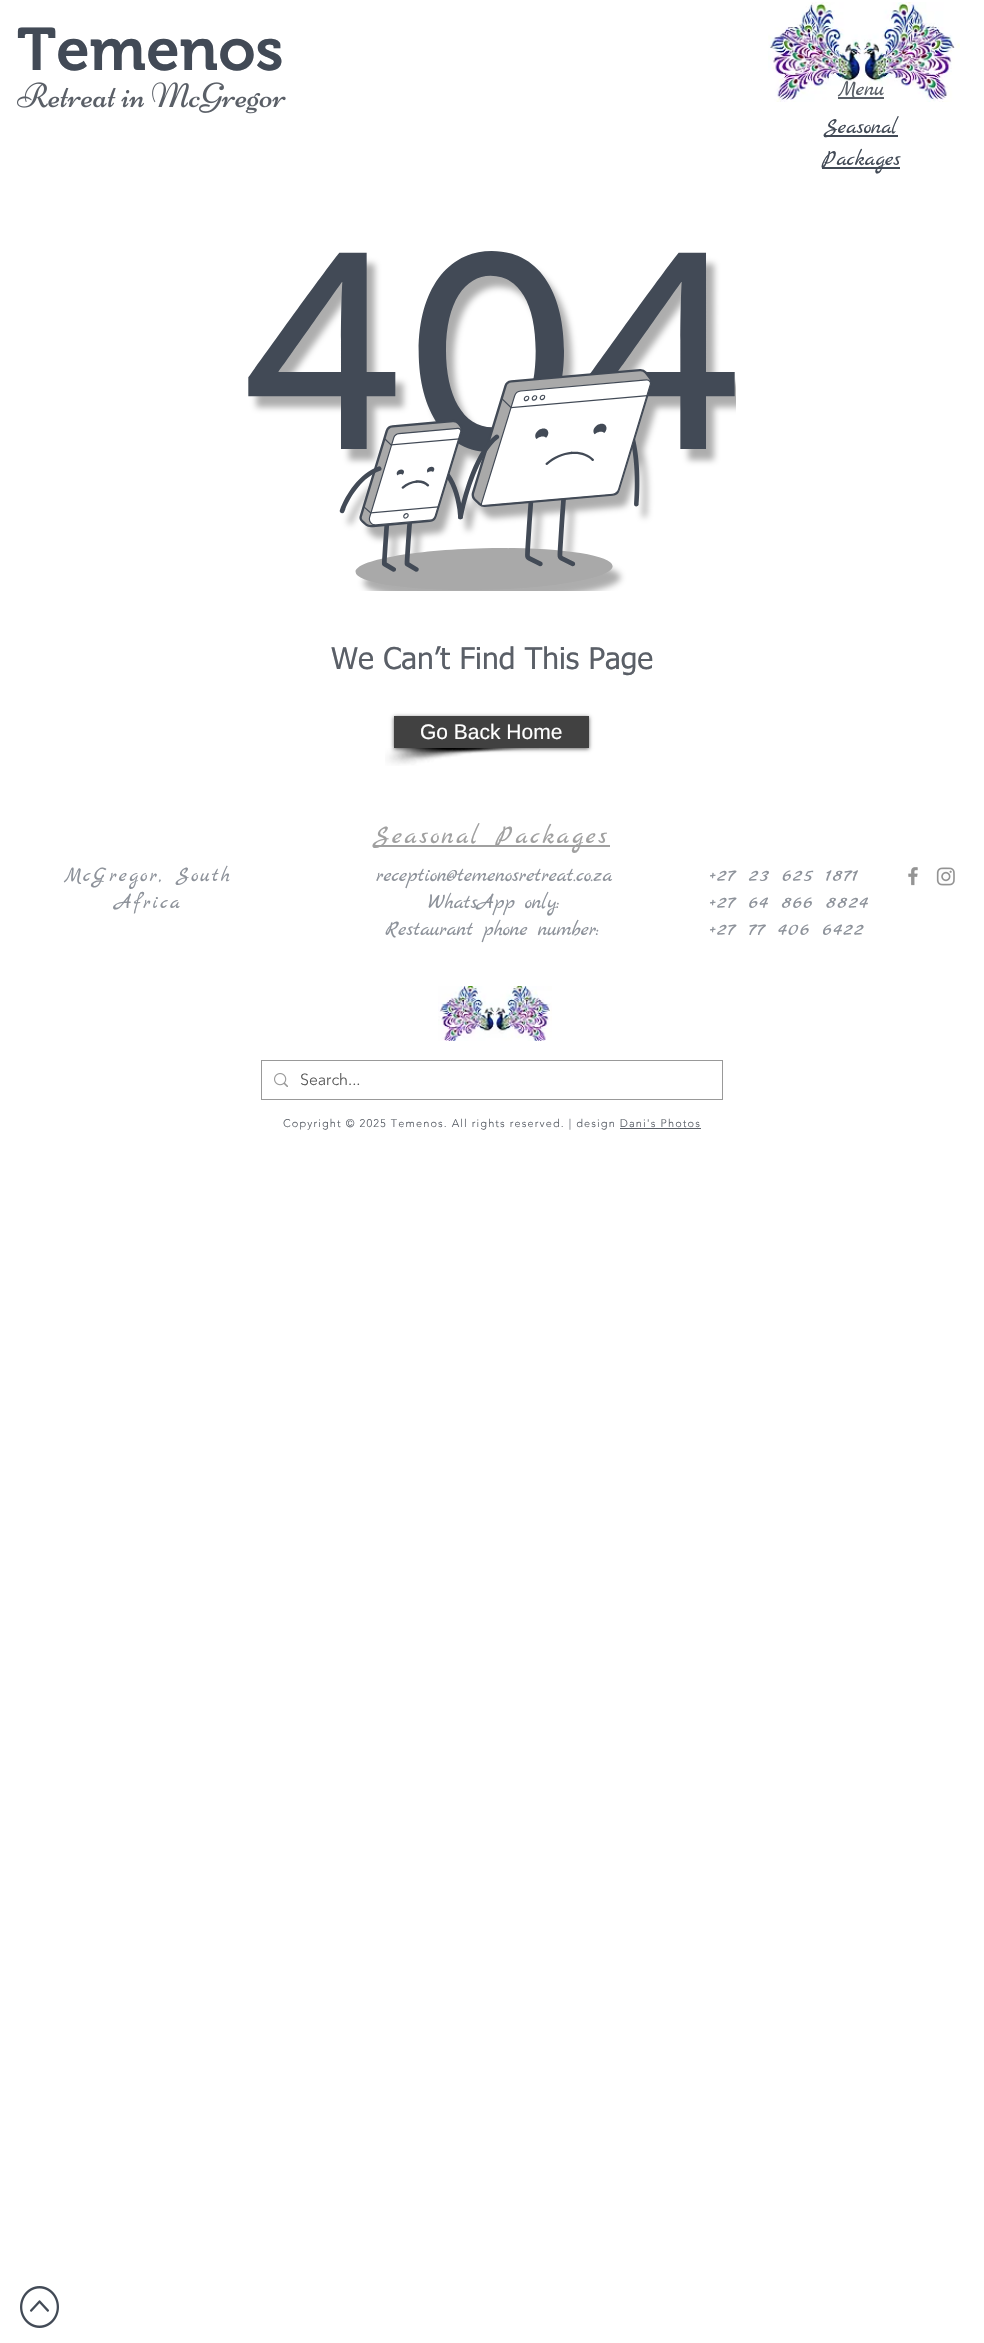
void draw(SkCanvas* canvas) {
    SkPaint paint;
    paint.setAntiAlias(true);
    auto face = [&](const char* family, int weight, float size, bool italic = false) {
        SkFontStyle style(weight, SkFontStyle::kNormal_Width,
            italic ? SkFontStyle::kItalic_Slant : SkFontStyle::kUpright_Slant);
        SkFont result(fontMgr->matchFamilyStyle(family, style), size);
        result.setSubpixel(true);
        return result;
    };
    auto write = [&](const char* s, float x, float y, const SkFont& font, SkColor color) {
        SkPaint ink(SkColor4f::FromColor(color));
        ink.setAntiAlias(true);
        canvas->drawString(s, x, y, font, ink);
    };
    auto writeSpaced = [&](const char* s, float x, float y, const SkFont& font, const SkPaint& ink, float letter, float word) {
        std::vector<SkGlyphID> glyphs(font.countText(s, strlen(s), SkTextEncoding::kUTF8));
        std::vector<float> xs(glyphs.size());
        font.textToGlyphs(s, strlen(s), SkTextEncoding::kUTF8, glyphs);
        font.getXPos(glyphs, xs, x);
        float extra = 0;
        for (size_t i = 0; i < glyphs.size(); i++) {
            xs[i] += extra;
            extra += letter + word * (glyphs[i] == font.unicharToGlyph(' '));
        }
        canvas->drawTextBlob(SkTextBlob::MakeFromPosHGlyphs(glyphs, xs, y, font), 0, 0, ink);
    };
    auto block = [&](float x, float y, float w, float h, SkColor color) {
        SkPaint ink(SkColor4f::FromColor(color));
        ink.setAntiAlias(true);
        canvas->drawRect(SkRect::MakeXYWH(x, y, w, h), ink);
    };
    auto paste = [&](const char* path, float x, float y, float w, float h) {
        auto image = SkImages::DeferredFromEncodedData(SkData::MakeFromFileName(path));
        canvas->drawImageRect(image, SkRect::MakeXYWH(x, y, w, h), SkSamplingOptions());
    };
    canvas->clear(SK_ColorWHITE);
    auto kFont1 = face("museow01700", 600, 60);
    write("Temenos", 17, 70, kFont1, SkColorSetRGB(66, 74, 86));
    paste("pic1.png", 17, 82, 269, 32);
    paste("pic2.png", 768, 2, 192, 100);
    block(838, 97, 46, 2, SkColorSetRGB(90, 95, 103));
    auto kFont2 = face("Marck Script", 400, 22);
    write("Menu", 838, 95, kFont2, SkColorSetRGB(90, 95, 103));
    block(824, 135, 74, 2, SkColorSetRGB(66, 74, 86));
    write("Seasonal", 824, 133, kFont2, SkColorSetRGB(66, 74, 86));
    block(822, 167, 78, 2, SkColorSetRGB(66, 74, 86));
    write("Packages", 822, 165, kFont2, SkColorSetRGB(66, 74, 86));
    paste("pic3.png", 248, 251, 488, 340);
    auto kFont3 = face("tahoma", 400, 30);
    write("We Can’t Find This Page", 331, 669, kFont3, SkColorSetRGB(90, 95, 103));
    paste("pic4.png", 385, 748, 154, 18);
    paint.setColor(SkColorSetARGB(153, 0, 0, 0));
    paint.setMaskFilter(SkMaskFilter::MakeBlur(kNormal_SkBlurStyle, 2));
    canvas->drawRect(SkRect::MakeXYWH(394, 717, 195, 32), paint);
    paint.setMaskFilter(nullptr);
    block(394, 716, 195, 32, SkColorSetRGB(65, 65, 65));
    auto kFont4 = face("Liberation Sans", 400, 21);
    write("Go Back Home", 420, 739, kFont4, SK_ColorWHITE);
    block(373, 845, 237, 2, SkColorSetRGB(160, 160, 160));
    auto kFont5 = face("Marck Script", 400, 26);
    paint.setColor(SkColorSetRGB(160, 160, 160));
    writeSpaced("Seasonal Packages", 373, 843, kFont5, paint, 2.6f, 0);
    auto kFont6 = face("Marck Script", 400, 21);
    paint.setColor(SkColorSetRGB(141, 146, 154));
    writeSpaced("McGregor, South", 64, 881, kFont6, paint, 2.1f, 0);
    writeSpaced("Africa", 115, 908, kFont6, paint, 2.1f, 0);
    write("reception@temenosretreat.co.za", 376, 881, kFont6, SkColorSetRGB(141, 146, 154));
    writeSpaced("+27 23 625 1871", 710, 881, kFont6, paint, 2.1f, 0);
    paste("pic5.png", 908, 867, 10, 19);
    paste("pic6.png", 936, 867, 19, 19);
    paste("pic7.png", 438, 986, 114, 55);
    write("WhatsApp only:", 428, 908, kFont6, SkColorSetRGB(141, 146, 154));
    writeSpaced("+27 64 866 8824", 710, 908, kFont6, paint, 2.1f, 0);
    write("Restaurant phone number:", 385, 935, kFont6, SkColorSetRGB(141, 146, 154));
    writeSpaced("+27 77 406 6422", 710, 935, kFont6, paint, 2.1f, 0);
    paint.setStyle(SkPaint::kStroke_Style);
    paint.setStrokeWidth(1);
    paint.setColor(SkColorSetRGB(153, 153, 153));
    canvas->drawRect(SkRect::MakeXYWH(261.5f, 1060.5f, 461, 39), paint);
    paste("pic8.png", 274, 1073, 14, 14);
    auto kFont7 = face("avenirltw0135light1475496", 300, 16);
    write("Search...", 300, 1085, kFont7, SkColorSetRGB(85, 85, 85));
    auto kFont8 = face("avenirltw0135light1475496", 300, 11);
    paint.setStyle(SkPaint::kFill_Style);
    paint.setColor(SkColorSetRGB(90, 95, 103));
    writeSpaced("Copyright © 2025 Temenos. All rights reserved. | design Dani's Photos", 283, 1127, kFont8, paint, 1.1f, 0);
    block(620, 1128, 81, 1, SkColorSetRGB(90, 95, 103));
    paste("pic9.png", 20, 2286, 39, 42);
}
